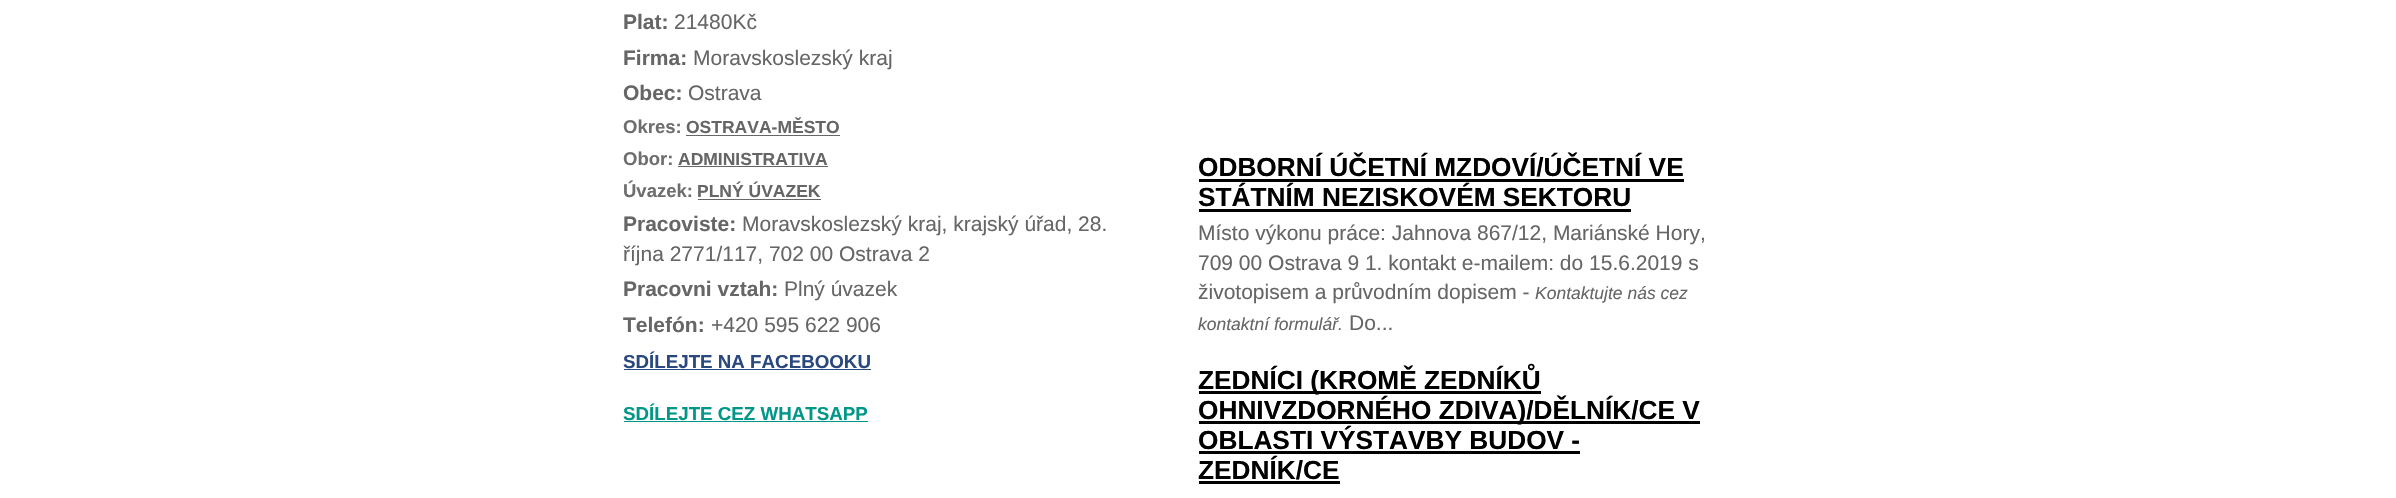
void draw(SkCanvas* canvas) {
    SkPaint paint;
    paint.setAntiAlias(true);
    auto face = [&](const char* family, int weight, float size, bool italic = false) {
        SkFontStyle style(weight, SkFontStyle::kNormal_Width,
            italic ? SkFontStyle::kItalic_Slant : SkFontStyle::kUpright_Slant);
        SkFont result(fontMgr->matchFamilyStyle(family, style), size);
        result.setSubpixel(true);
        return result;
    };
    auto write = [&](const char* s, float x, float y, const SkFont& font, SkColor color) {
        SkPaint ink(SkColor4f::FromColor(color));
        ink.setAntiAlias(true);
        canvas->drawString(s, x, y, font, ink);
    };
    auto block = [&](float x, float y, float w, float h, SkColor color) {
        SkPaint ink(SkColor4f::FromColor(color));
        ink.setAntiAlias(true);
        canvas->drawRect(SkRect::MakeXYWH(x, y, w, h), ink);
    };
    canvas->clear(SK_ColorWHITE);
    auto kFont1 = face("Liberation Sans", 700, 21);
    write("Plat:", 623, 29, kFont1, SkColorSetRGB(102, 102, 102));
    auto kFont2 = face("Liberation Sans", 400, 21);
    write("21480Kč", 674, 29, kFont2, SkColorSetRGB(102, 102, 102));
    write("Firma:", 623, 65, kFont1, SkColorSetRGB(102, 102, 102));
    write("Moravskoslezský kraj", 693, 65, kFont2, SkColorSetRGB(102, 102, 102));
    write("Obec:", 623, 100, kFont1, SkColorSetRGB(102, 102, 102));
    write("Ostrava", 688, 100, kFont2, SkColorSetRGB(102, 102, 102));
    auto kFont3 = face("Liberation Sans", 700, 18.5f);
    write("Okres:", 623, 133, kFont3, SkColorSetRGB(110, 110, 110));
    auto kFont4 = face("Liberation Sans", 700, 17.5f);
    write("OSTRAVA-MĚSTO", 686, 133, kFont4, SkColorSetRGB(102, 102, 102));
    block(686, 135, 154, 1, SkColorSetRGB(102, 102, 102));
    write("Obor:", 623, 165, kFont3, SkColorSetRGB(110, 110, 110));
    write("ADMINISTRATIVA", 678, 165, kFont4, SkColorSetRGB(102, 102, 102));
    block(678, 166, 150, 1, SkColorSetRGB(102, 102, 102));
    write("Úvazek:", 623, 197, kFont3, SkColorSetRGB(110, 110, 110));
    write("PLNÝ ÚVAZEK", 697, 197, kFont4, SkColorSetRGB(102, 102, 102));
    block(698, 199, 123, 1, SkColorSetRGB(102, 102, 102));
    write("Pracoviste:", 623, 231, kFont1, SkColorSetRGB(102, 102, 102));
    write("Moravskoslezský kraj, krajský úřad, 28.", 742, 231, kFont2, SkColorSetRGB(102, 102, 102));
    write("října 2771/117, 702 00 Ostrava 2", 623, 261, kFont2, SkColorSetRGB(102, 102, 102));
    write("Pracovni vztah:", 623, 296, kFont1, SkColorSetRGB(102, 102, 102));
    write("Plný úvazek", 784, 296, kFont2, SkColorSetRGB(102, 102, 102));
    write("Telefón:", 623, 332, kFont1, SkColorSetRGB(102, 102, 102));
    write("+420 595 622 906", 711, 332, kFont2, SkColorSetRGB(102, 102, 102));
    auto kFont5 = face("Liberation Sans", 700, 18.75f);
    write("SDÍLEJTE NA FACEBOOKU", 623, 368, kFont5, SkColorSetRGB(41, 72, 125));
    block(624, 369, 247, 1, SkColorSetRGB(41, 72, 125));
    write("SDÍLEJTE CEZ WHATSAPP", 623, 420, kFont5, SkColorSetRGB(0, 150, 136));
    block(624, 421, 244, 1, SkColorSetRGB(0, 150, 136));
    auto kFont6 = face("Liberation Sans", 700, 26.25f);
    write("ODBORNÍ ÚČETNÍ MZDOVÍ/ÚČETNÍ VE", 1198, 176, kFont6, SK_ColorBLACK);
    write("STÁTNÍM NEZISKOVÉM SEKTORU", 1198, 206, kFont6, SK_ColorBLACK);
    block(1199, 179, 485, 3, SK_ColorBLACK);
    block(1199, 209, 432, 3, SK_ColorBLACK);
    write("Místo výkonu práce: Jahnova 867/12, Mariánské Hory,", 1198, 240, kFont2, SkColorSetRGB(102, 102, 102));
    write("709 00 Ostrava 9 1. kontakt e-mailem: do 15.6.2019 s", 1198, 270, kFont2, SkColorSetRGB(102, 102, 102));
    write("životopisem a průvodním dopisem -", 1198, 299, kFont2, SkColorSetRGB(102, 102, 102));
    auto kFont7 = face("Liberation Sans", 400, 17.5f, true);
    write("Kontaktujte nás cez", 1535, 299, kFont7, SkColorSetRGB(102, 102, 102));
    write("kontaktní formulář.", 1198, 330, kFont7, SkColorSetRGB(102, 102, 102));
    write("Do...", 1349, 330, kFont2, SkColorSetRGB(102, 102, 102));
    block(1199, 391, 342, 3, SK_ColorBLACK);
    write("ZEDNÍCI (KROMĚ ZEDNÍKŮ", 1198, 389, kFont6, SK_ColorBLACK);
    block(1199, 421, 501, 3, SK_ColorBLACK);
    write("OHNIVZDORNÉHO ZDIVA)/DĚLNÍK/CE V", 1198, 419, kFont6, SK_ColorBLACK);
    write("OBLASTI VÝSTAVBY BUDOV -", 1198, 449, kFont6, SK_ColorBLACK);
    block(1199, 451, 381, 3, SK_ColorBLACK);
    write("ZEDNÍK/CE", 1198, 479, kFont6, SK_ColorBLACK);
    block(1199, 481, 141, 3, SK_ColorBLACK);
}
